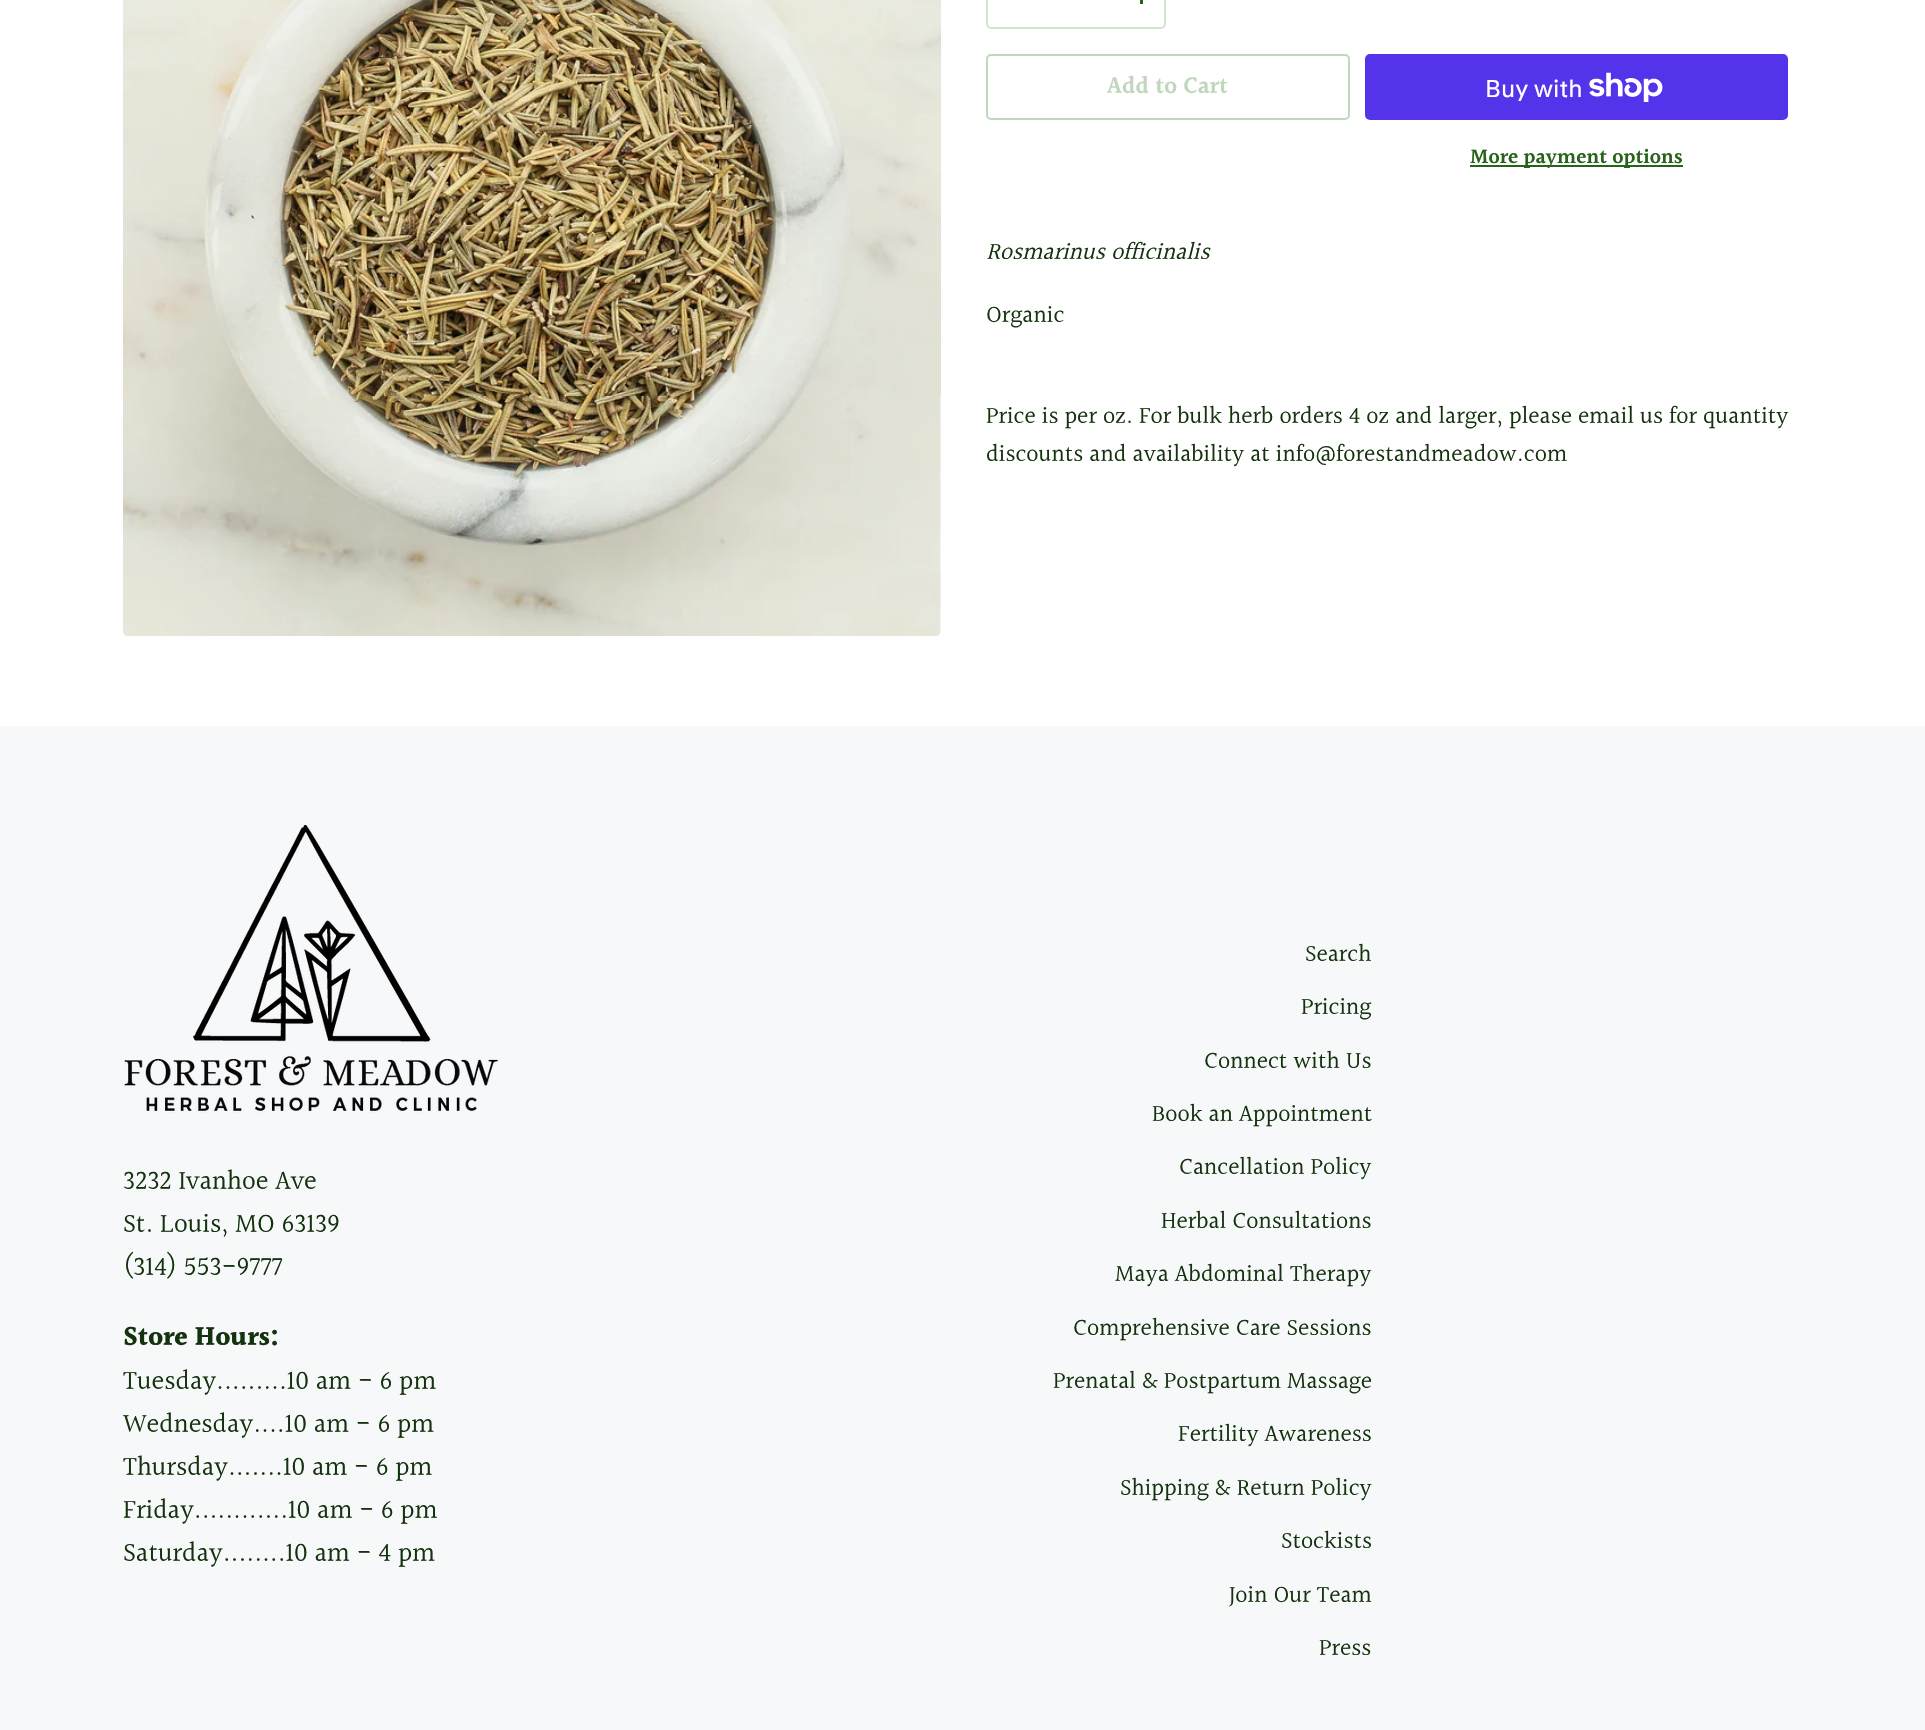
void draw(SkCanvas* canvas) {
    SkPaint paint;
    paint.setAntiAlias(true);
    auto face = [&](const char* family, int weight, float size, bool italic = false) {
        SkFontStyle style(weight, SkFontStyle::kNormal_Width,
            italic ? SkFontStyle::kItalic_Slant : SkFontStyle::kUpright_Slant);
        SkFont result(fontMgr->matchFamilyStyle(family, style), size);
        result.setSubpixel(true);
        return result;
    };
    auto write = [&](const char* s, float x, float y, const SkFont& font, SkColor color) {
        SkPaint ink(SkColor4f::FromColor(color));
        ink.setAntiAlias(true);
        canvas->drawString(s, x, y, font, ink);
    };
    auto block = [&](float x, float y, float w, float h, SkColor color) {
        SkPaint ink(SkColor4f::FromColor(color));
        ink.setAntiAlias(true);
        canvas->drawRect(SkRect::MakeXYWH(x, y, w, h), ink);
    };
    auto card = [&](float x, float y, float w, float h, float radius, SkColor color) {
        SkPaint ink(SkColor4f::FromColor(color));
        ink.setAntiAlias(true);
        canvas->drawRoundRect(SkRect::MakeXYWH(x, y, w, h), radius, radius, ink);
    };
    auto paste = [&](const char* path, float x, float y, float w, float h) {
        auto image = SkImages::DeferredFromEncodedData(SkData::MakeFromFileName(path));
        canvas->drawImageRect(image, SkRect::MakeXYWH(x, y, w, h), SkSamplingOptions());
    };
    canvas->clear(SK_ColorWHITE);
    paste("pic1.png", 123, 0, 818, 636);
    paint.setStyle(SkPaint::kStroke_Style);
    paint.setStrokeWidth(2);
    paint.setColor(SkColorSetRGB(207, 232, 205));
    canvas->drawRoundRect(SkRect::MakeXYWH(987, -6, 178, 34), 4, 4, paint);
    block(1140, 0, 3, 4, SkColorSetRGB(38, 98, 26));
    paint.setColor(SkColorSetRGB(191, 215, 189));
    canvas->drawRoundRect(SkRect::MakeXYWH(987, 55, 362, 64), 4, 4, paint);
    auto kFont1 = face("Halant", 600, 24);
    write("Add to Cart", 1107, 94, kFont1, SkColorSetRGB(191, 215, 189));
    card(1365, 54, 423, 66, 5, SkColorSetRGB(84, 51, 235));
    auto kFont2 = face("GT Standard", 400, 24);
    write("Buy with", 1485, 97, kFont2, SK_ColorWHITE);
    paste("pic2.png", 1589, 72, 74, 30);
    block(1470, 165, 213, 2, SkColorSetRGB(38, 98, 26));
    auto kFont3 = face("Halant", 600, 21);
    write("More payment options", 1470, 164, kFont3, SkColorSetRGB(38, 98, 26));
    auto kFont4 = face("Halant", 400, 24, true);
    write("Rosmarinus officinalis", 986, 260, kFont4, SkColorSetRGB(19, 50, 13));
    auto kFont5 = face("Halant", 400, 24);
    write("Organic", 986, 323, kFont5, SkColorSetRGB(19, 50, 13));
    write("Price is per oz. For bulk herb orders 4 oz and larger, please email us for quantity", 986, 424, kFont5, SkColorSetRGB(19, 50, 13));
    write("discounts and availability at info@forestandmeadow.com", 986, 462, kFont5, SkColorSetRGB(19, 50, 13));
    block(0, 726, 1925, 1004, SkColorSetRGB(247, 248, 250));
    paste("pic3.png", 124, 825, 374, 288);
    auto kFont6 = face("Halant", 400, 27);
    write("3232 Ivanhoe Ave", 123, 1190, kFont6, SkColorSetRGB(19, 50, 13));
    write("St. Louis, MO 63139", 123, 1233, kFont6, SkColorSetRGB(19, 50, 13));
    write("(314) 553-9777", 123, 1276, kFont6, SkColorSetRGB(19, 50, 13));
    auto kFont7 = face("Halant", 700, 27);
    write("Store Hours:", 123, 1346, kFont7, SkColorSetRGB(19, 50, 13));
    write("Tuesday.........10 am - 6 pm", 123, 1390, kFont6, SkColorSetRGB(19, 50, 13));
    write("Wednesday....10 am - 6 pm", 123, 1433, kFont6, SkColorSetRGB(19, 50, 13));
    write("Thursday.......10 am - 6 pm", 123, 1476, kFont6, SkColorSetRGB(19, 50, 13));
    write("Friday............10 am - 6 pm", 123, 1519, kFont6, SkColorSetRGB(19, 50, 13));
    write("Saturday........10 am - 4 pm", 123, 1562, kFont6, SkColorSetRGB(19, 50, 13));
    write("Search", 1305, 962, kFont5, SkColorSetRGB(19, 50, 13));
    write("Pricing", 1301, 1015, kFont5, SkColorSetRGB(19, 50, 13));
    write("Connect with Us", 1204, 1069, kFont5, SkColorSetRGB(19, 50, 13));
    write("Book an Appointment", 1152, 1122, kFont5, SkColorSetRGB(19, 50, 13));
    write("Cancellation Policy", 1179, 1175, kFont5, SkColorSetRGB(19, 50, 13));
    write("Herbal Consultations", 1161, 1229, kFont5, SkColorSetRGB(19, 50, 13));
    write("Maya Abdominal Therapy", 1115, 1282, kFont5, SkColorSetRGB(19, 50, 13));
    write("Comprehensive Care Sessions", 1073, 1336, kFont5, SkColorSetRGB(19, 50, 13));
    write("Prenatal & Postpartum Massage", 1053, 1389, kFont5, SkColorSetRGB(19, 50, 13));
    write("Fertility Awareness", 1178, 1442, kFont5, SkColorSetRGB(19, 50, 13));
    write("Shipping & Return Policy", 1120, 1496, kFont5, SkColorSetRGB(19, 50, 13));
    write("Stockists", 1281, 1549, kFont5, SkColorSetRGB(19, 50, 13));
    write("Join Our Team", 1229, 1603, kFont5, SkColorSetRGB(19, 50, 13));
    write("Press", 1319, 1656, kFont5, SkColorSetRGB(19, 50, 13));
}
